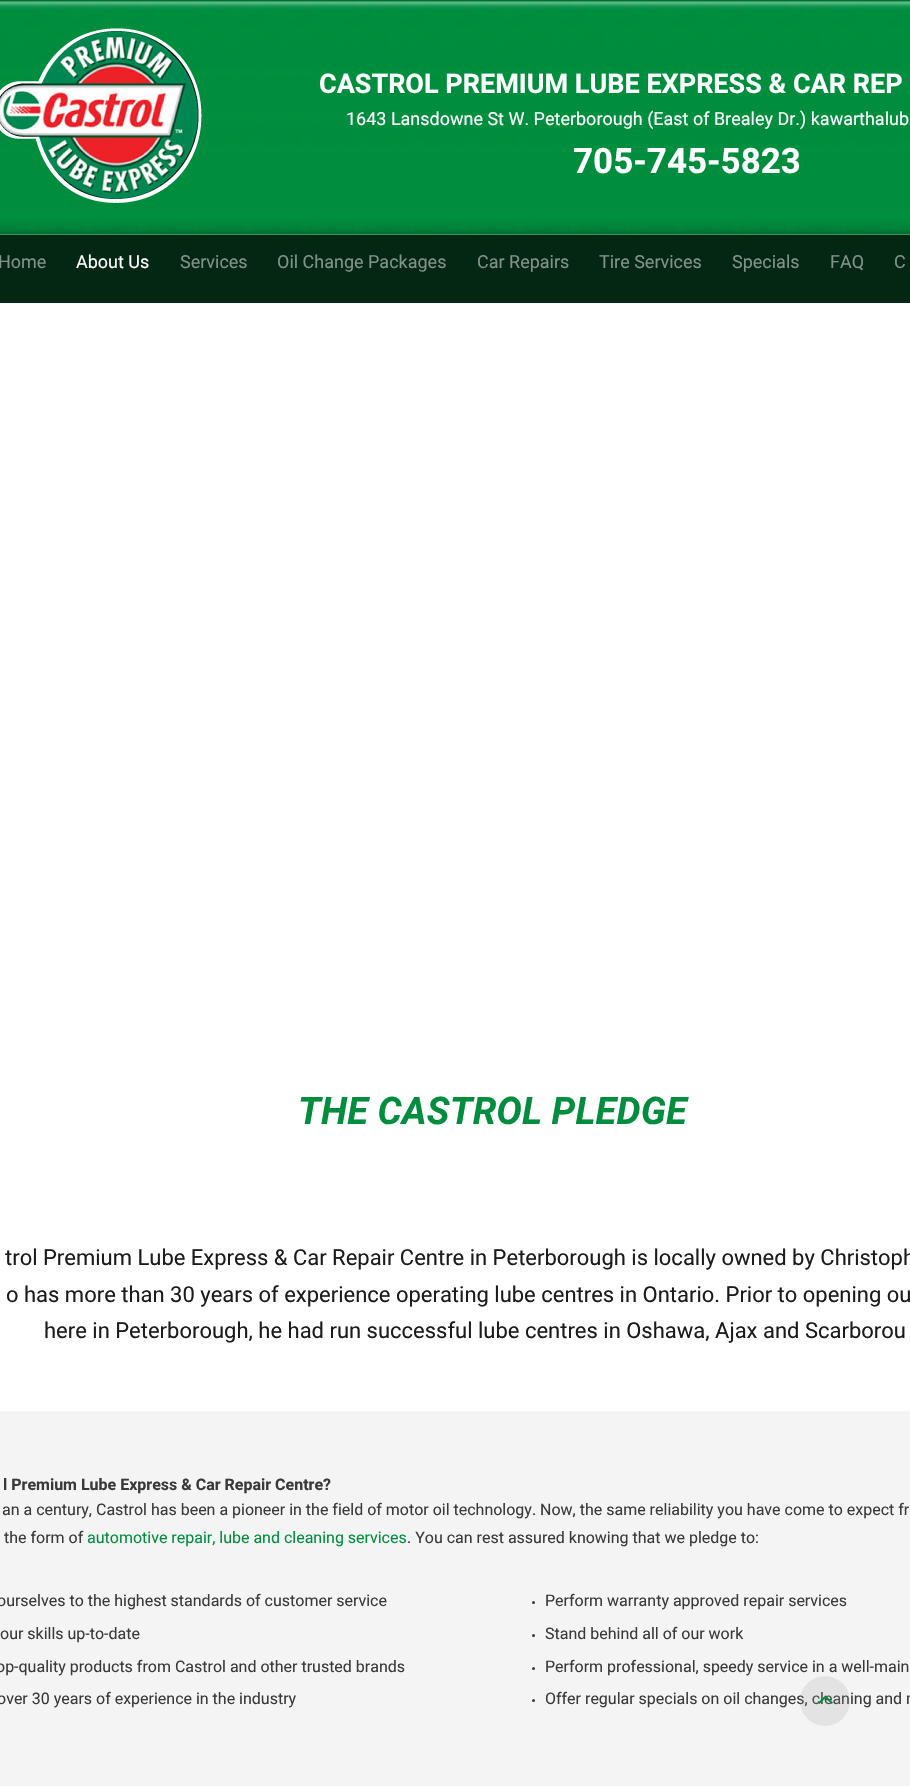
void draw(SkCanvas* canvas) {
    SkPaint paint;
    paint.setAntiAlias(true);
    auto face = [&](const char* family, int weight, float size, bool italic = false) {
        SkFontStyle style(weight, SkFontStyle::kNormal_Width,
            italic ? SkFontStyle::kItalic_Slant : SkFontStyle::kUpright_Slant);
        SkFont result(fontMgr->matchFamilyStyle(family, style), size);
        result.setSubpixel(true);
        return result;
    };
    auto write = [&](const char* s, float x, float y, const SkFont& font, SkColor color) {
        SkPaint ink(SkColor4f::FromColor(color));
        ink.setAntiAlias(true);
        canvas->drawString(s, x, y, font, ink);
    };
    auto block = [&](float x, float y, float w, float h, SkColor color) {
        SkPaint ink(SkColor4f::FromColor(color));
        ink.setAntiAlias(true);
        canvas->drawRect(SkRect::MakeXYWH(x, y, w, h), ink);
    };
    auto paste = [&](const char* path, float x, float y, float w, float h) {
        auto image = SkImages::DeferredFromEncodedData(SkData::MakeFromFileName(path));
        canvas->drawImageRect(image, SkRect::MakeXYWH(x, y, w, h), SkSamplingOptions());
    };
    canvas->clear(SK_ColorWHITE);
    paste("pic1.png", 0, 0, 910, 235);
    paste("pic2.png", 0, 28, 202, 175);
    auto kFont1 = face("Roboto", 700, 27);
    write("CASTROL PREMIUM LUBE EXPRESS & CAR REP", 319, 93, kFont1, SK_ColorWHITE);
    auto kFont2 = face("Roboto", 400, 18);
    write("1643 Lansdowne St W. Peterborough (East of Brealey Dr.) kawarthalub", 346, 125, kFont2, SK_ColorWHITE);
    auto kFont3 = face("Roboto", 700, 35);
    write("705-745-5823", 573, 173, kFont3, SK_ColorWHITE);
    block(0, 235, 910, 68, SkColorSetRGB(4, 39, 20));
    write("Home", -2, 268, kFont2, SkColorSetRGB(129, 147, 137));
    write("About Us", 76, 268, kFont2, SK_ColorWHITE);
    write("Services", 180, 268, kFont2, SkColorSetRGB(129, 147, 137));
    write("Oil Change Packages", 277, 268, kFont2, SkColorSetRGB(129, 147, 137));
    write("Car Repairs", 477, 268, kFont2, SkColorSetRGB(129, 147, 137));
    write("Tire Services", 599, 268, kFont2, SkColorSetRGB(129, 147, 137));
    write("Specials", 732, 268, kFont2, SkColorSetRGB(129, 147, 137));
    write("FAQ", 830, 268, kFont2, SkColorSetRGB(129, 147, 137));
    write("C", 894, 268, kFont2, SkColorSetRGB(129, 147, 137));
    auto kFont4 = face("Roboto", 700, 38, true);
    write("THE CASTROL PLEDGE", 298, 1124, kFont4, SkColorSetRGB(0, 141, 62));
    auto kFont5 = face("Roboto", 400, 22);
    write("trol Premium Lube Express & Car Repair Centre in Peterborough is locally owned by Christoph", 5, 1265, kFont5, SkColorSetRGB(27, 27, 27));
    write("o has more than 30 years of experience operating lube centres in Ontario. Prior to opening ou", 6, 1302, kFont5, SkColorSetRGB(27, 27, 27));
    write("here in Peterborough, he had run successful lube centres in Oshawa, Ajax and Scarborou", 44, 1338, kFont5, SkColorSetRGB(27, 27, 27));
    block(0, 1411, 910, 375, SkColorSetRGB(244, 244, 244));
    auto kFont6 = face("Roboto", 700, 16);
    write("l Premium Lube Express & Car Repair Centre?", 3, 1490, kFont6, SkColorSetRGB(57, 57, 57));
    auto kFont7 = face("Roboto", 400, 16);
    write("an a century, Castrol has been a pioneer in the field of motor oil technology. Now, the same reliability you have come to expect fr", 2, 1515, kFont7, SkColorSetRGB(57, 57, 57));
    write("the form of", 4, 1543, kFont7, SkColorSetRGB(57, 57, 57));
    write("automotive repair, lube and cleaning services", 87, 1543, kFont7, SkColorSetRGB(0, 141, 62));
    write(". You can rest assured knowing that we pledge to:", 407, 1543, kFont7, SkColorSetRGB(57, 57, 57));
    write("ourselves to the highest standards of customer service", -3, 1606, kFont7, SkColorSetRGB(57, 57, 57));
    write("our skills up-to-date", 0, 1639, kFont7, SkColorSetRGB(57, 57, 57));
    write("op-quality products from Castrol and other trusted brands", -4, 1672, kFont7, SkColorSetRGB(57, 57, 57));
    write("over 30 years of experience in the industry", -3, 1704, kFont7, SkColorSetRGB(57, 57, 57));
    paint.setColor(SkColorSetRGB(57, 57, 57));
    canvas->drawCircle(533.5f, 1602.5f, 1.5f, paint);
    write("Perform warranty approved repair services", 545, 1606, kFont7, SkColorSetRGB(57, 57, 57));
    canvas->drawCircle(533.5f, 1635.5f, 1.5f, paint);
    write("Stand behind all of our work", 545, 1639, kFont7, SkColorSetRGB(57, 57, 57));
    canvas->drawCircle(533.5f, 1668.5f, 1.5f, paint);
    write("Perform professional, speedy service in a well-main", 545, 1672, kFont7, SkColorSetRGB(57, 57, 57));
    canvas->drawCircle(533.5f, 1700.5f, 1.5f, paint);
    write("Offer regular specials on oil changes, cleaning and m", 545, 1704, kFont7, SkColorSetRGB(57, 57, 57));
    paint.setColor(SkColorSetARGB(51, 161, 161, 161));
    canvas->drawCircle(825, 1701, 25, paint);
    paste("pic3.png", 818, 1695, 15, 9);
}
